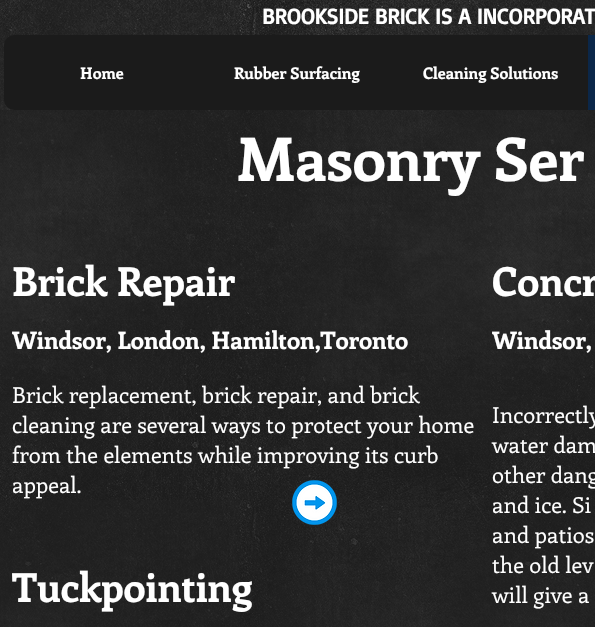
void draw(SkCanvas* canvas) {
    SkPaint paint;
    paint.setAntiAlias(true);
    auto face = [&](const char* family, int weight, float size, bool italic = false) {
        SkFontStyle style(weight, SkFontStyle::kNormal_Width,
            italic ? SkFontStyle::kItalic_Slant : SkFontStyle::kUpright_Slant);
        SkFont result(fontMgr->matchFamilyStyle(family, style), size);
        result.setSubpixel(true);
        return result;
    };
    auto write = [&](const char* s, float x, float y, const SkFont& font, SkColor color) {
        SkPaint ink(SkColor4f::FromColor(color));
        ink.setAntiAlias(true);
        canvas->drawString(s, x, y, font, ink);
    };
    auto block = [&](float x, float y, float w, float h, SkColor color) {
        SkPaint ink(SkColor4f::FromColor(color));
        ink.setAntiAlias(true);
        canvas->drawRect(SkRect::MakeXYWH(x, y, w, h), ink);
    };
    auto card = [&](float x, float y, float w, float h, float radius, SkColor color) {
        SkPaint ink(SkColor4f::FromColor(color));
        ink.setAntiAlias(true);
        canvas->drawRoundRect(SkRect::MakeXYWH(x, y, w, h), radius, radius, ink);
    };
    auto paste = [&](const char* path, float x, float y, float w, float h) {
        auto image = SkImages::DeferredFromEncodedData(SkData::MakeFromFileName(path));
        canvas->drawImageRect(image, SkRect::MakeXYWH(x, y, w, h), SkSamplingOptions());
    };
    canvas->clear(SkColorSetRGB(27, 27, 27));
    paste("pic1.png", 0, 0, 595, 627);
    auto kFont1 = face("Basic", 700, 22);
    write("BROOKSIDE BRICK IS A INCORPORAT", 262, 24, kFont1, SK_ColorWHITE);
    card(4, 35, 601, 75, 10, SkColorSetRGB(27, 27, 27));
    auto kFont2 = face("Enriqueta", 700, 16);
    write("Home", 80, 79, kFont2, SK_ColorWHITE);
    write("Rubber Surfacing", 234, 79, kFont2, SK_ColorWHITE);
    write("Cleaning Solutions", 423, 79, kFont2, SK_ColorWHITE);
    block(588, 35, 7, 75, SkColorSetRGB(11, 39, 73));
    block(0, 110, 595, 517, SkColorSetARGB(128, 27, 27, 27));
    auto kFont3 = face("Enriqueta", 700, 60);
    write("Masonry Ser", 237, 181, kFont3, SK_ColorWHITE);
    auto kFont4 = face("Enriqueta", 700, 40);
    write("Brick Repair", 12, 296, kFont4, SK_ColorWHITE);
    auto kFont5 = face("Enriqueta", 700, 24);
    write("Windsor, London, Hamilton,Toronto", 12, 349, kFont5, SK_ColorWHITE);
    auto kFont6 = face("Enriqueta", 400, 22);
    write("Brick replacement, brick repair, and brick", 12, 403, kFont6, SK_ColorWHITE);
    write("cleaning are several ways to protect your home", 12, 433, kFont6, SK_ColorWHITE);
    write("from the elements while improving its curb", 12, 463, kFont6, SK_ColorWHITE);
    write("appeal.", 12, 493, kFont6, SK_ColorWHITE);
    write("Tuckpointing", 12, 602, kFont4, SK_ColorWHITE);
    write("Concr", 492, 296, kFont4, SK_ColorWHITE);
    write("Windsor,", 492, 349, kFont5, SK_ColorWHITE);
    write("Incorrectly", 492, 423, kFont6, SK_ColorWHITE);
    write("water dam", 492, 453, kFont6, SK_ColorWHITE);
    write("other dang", 492, 483, kFont6, SK_ColorWHITE);
    write("and ice. Si", 492, 513, kFont6, SK_ColorWHITE);
    write("and patios", 492, 543, kFont6, SK_ColorWHITE);
    write("the old lev", 492, 573, kFont6, SK_ColorWHITE);
    write("will give a", 492, 603, kFont6, SK_ColorWHITE);
    paste("pic2.png", 292, 480, 45, 45);
}
